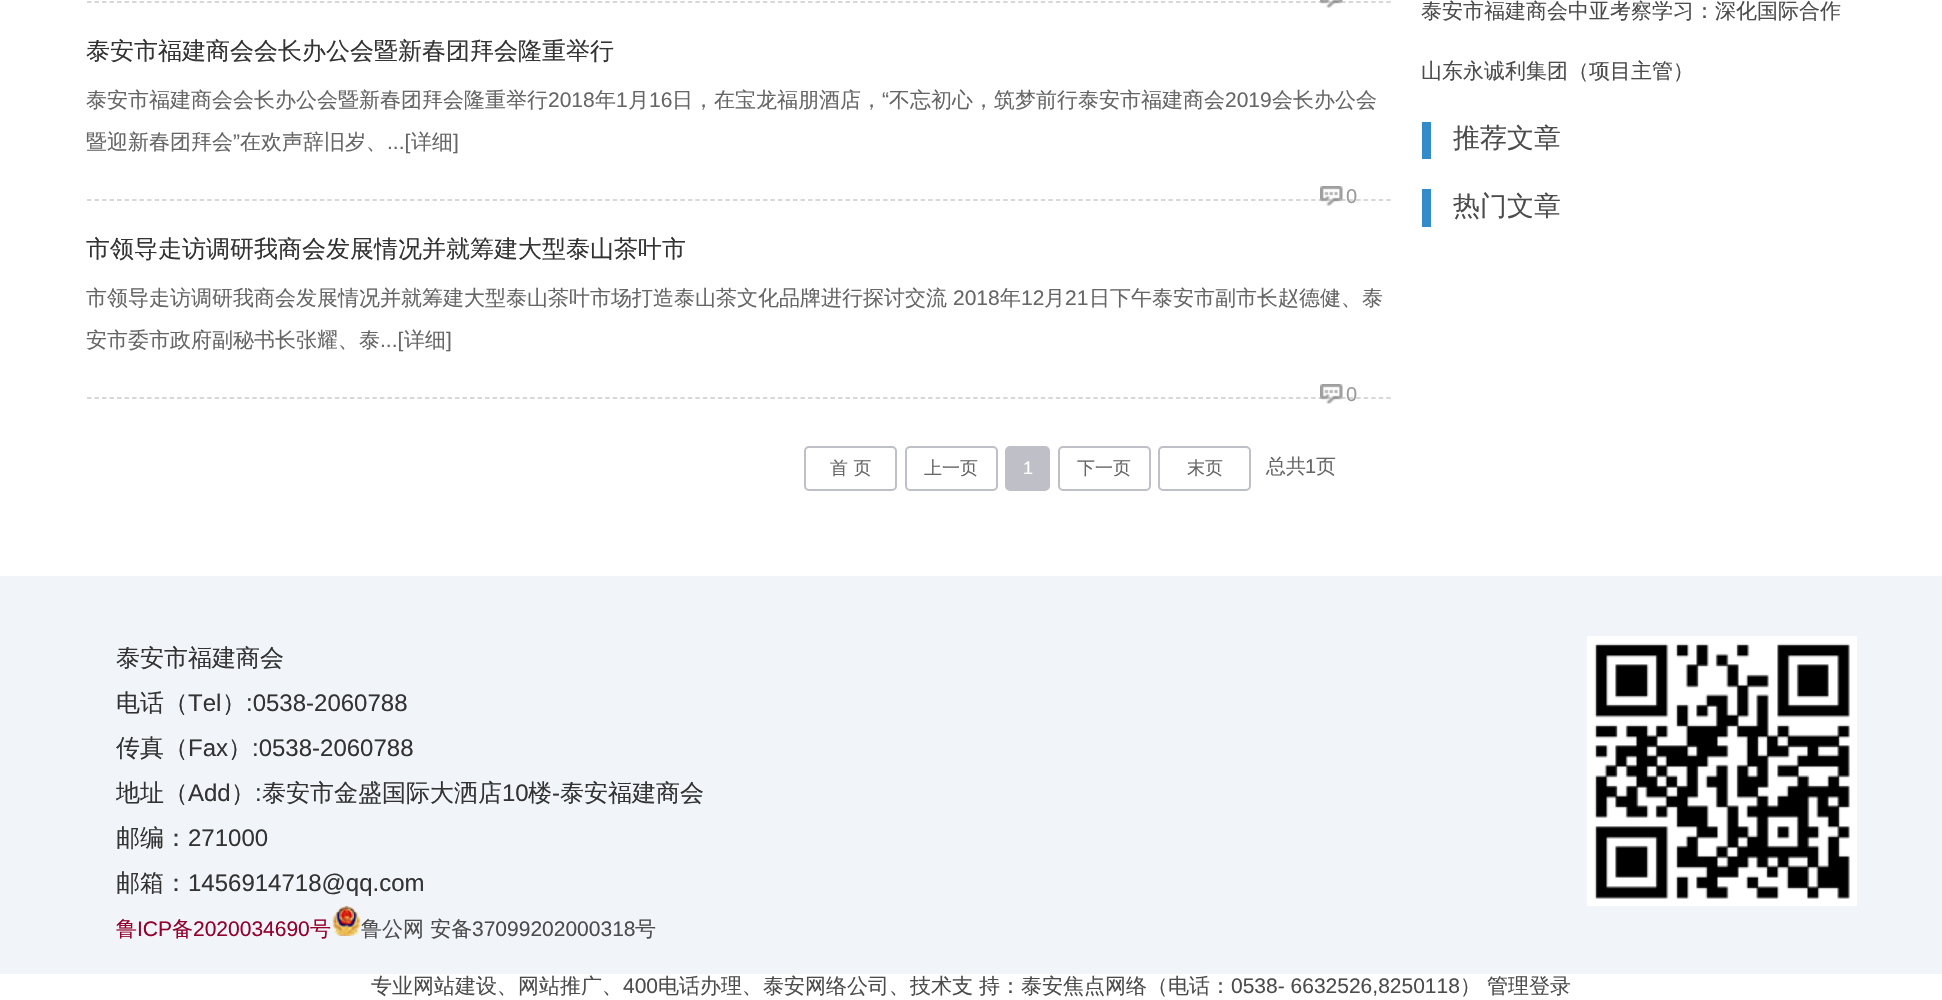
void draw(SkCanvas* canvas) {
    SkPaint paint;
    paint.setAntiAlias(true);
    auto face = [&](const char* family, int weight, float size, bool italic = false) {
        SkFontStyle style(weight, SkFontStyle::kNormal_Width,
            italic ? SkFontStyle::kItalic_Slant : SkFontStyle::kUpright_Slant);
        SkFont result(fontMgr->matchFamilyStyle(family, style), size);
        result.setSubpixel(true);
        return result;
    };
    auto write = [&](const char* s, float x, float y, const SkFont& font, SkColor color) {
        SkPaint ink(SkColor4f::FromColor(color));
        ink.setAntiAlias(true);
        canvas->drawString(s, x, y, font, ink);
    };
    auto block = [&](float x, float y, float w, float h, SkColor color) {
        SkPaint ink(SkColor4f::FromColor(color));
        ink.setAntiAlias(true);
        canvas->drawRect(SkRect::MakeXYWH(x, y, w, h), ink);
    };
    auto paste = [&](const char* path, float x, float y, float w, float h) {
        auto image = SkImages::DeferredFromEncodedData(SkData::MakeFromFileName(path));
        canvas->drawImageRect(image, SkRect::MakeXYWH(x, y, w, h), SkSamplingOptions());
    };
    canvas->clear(SK_ColorWHITE);
    paint.setStyle(SkPaint::kStroke_Style);
    paint.setStrokeWidth(1.5f);
    paint.setColor(SkColorSetRGB(204, 204, 204));
    paint.setPathEffect(SkDashPathEffect::Make({{4.5f, 3.01f}}, 0));
    canvas->drawPath(SkPathBuilder().moveTo(87, 2).lineTo(1392, 2).detach(), paint);
    paint.setPathEffect(nullptr);
    paste("pic1.png", 1320, 0, 23, 8);
    paint.setPathEffect(SkDashPathEffect::Make({{4.5f, 3.01f}}, 0));
    canvas->drawPath(SkPathBuilder().moveTo(87, 200).lineTo(1392, 200).detach(), paint);
    paint.setPathEffect(nullptr);
    auto kFont1 = face("WenQuanYi Zen Hei", 500, 24);
    write("泰安市福建商会会长办公会暨新春团拜会隆重举行", 86, 59, kFont1, SkColorSetRGB(51, 51, 51));
    auto kFont2 = face("WenQuanYi Zen Hei", 500, 21);
    write("泰安市福建商会会长办公会暨新春团拜会隆重举行", 86, 107, kFont2, SkColorSetRGB(102, 102, 102));
    auto kFont3 = face("Liberation Sans", 400, 21);
    write("2018", 548, 107, kFont3, SkColorSetRGB(102, 102, 102));
    write("年", 595, 107, kFont2, SkColorSetRGB(102, 102, 102));
    write("1", 616, 107, kFont3, SkColorSetRGB(102, 102, 102));
    write("月", 628, 107, kFont2, SkColorSetRGB(102, 102, 102));
    write("16", 649, 107, kFont3, SkColorSetRGB(102, 102, 102));
    write("日，在宝龙福朋酒店，", 672, 107, kFont2, SkColorSetRGB(102, 102, 102));
    write("“", 882, 107, kFont3, SkColorSetRGB(102, 102, 102));
    write("不忘初心，筑梦前行泰安市福建商会", 889, 107, kFont2, SkColorSetRGB(102, 102, 102));
    write("2019", 1225, 107, kFont3, SkColorSetRGB(102, 102, 102));
    write("会长办公会", 1272, 107, kFont2, SkColorSetRGB(102, 102, 102));
    write("暨迎新春团拜会", 86, 149, kFont2, SkColorSetRGB(102, 102, 102));
    write("”", 233, 149, kFont3, SkColorSetRGB(102, 102, 102));
    write("在欢声辞旧岁、", 240, 149, kFont2, SkColorSetRGB(102, 102, 102));
    write("...[", 387, 149, kFont3, SkColorSetRGB(102, 102, 102));
    write("详细", 411, 149, kFont2, SkColorSetRGB(102, 102, 102));
    write("]", 453, 149, kFont3, SkColorSetRGB(102, 102, 102));
    paste("pic2.png", 1320, 186, 23, 20);
    auto kFont4 = face("Liberation Sans", 400, 20);
    write("0", 1346, 203, kFont4, SkColorSetRGB(153, 153, 153));
    paint.setPathEffect(SkDashPathEffect::Make({{4.5f, 3.01f}}, 0));
    canvas->drawPath(SkPathBuilder().moveTo(87, 398).lineTo(1392, 398).detach(), paint);
    paint.setPathEffect(nullptr);
    write("市领导走访调研我商会发展情况并就筹建大型泰山茶叶市", 86, 257, kFont1, SkColorSetRGB(51, 51, 51));
    write("市领导走访调研我商会发展情况并就筹建大型泰山茶叶市场打造泰山茶文化品牌进行探讨交流", 86, 305, kFont2, SkColorSetRGB(102, 102, 102));
    write("2018", 953, 305, kFont3, SkColorSetRGB(102, 102, 102));
    write("年", 1000, 305, kFont2, SkColorSetRGB(102, 102, 102));
    write("12", 1021, 305, kFont3, SkColorSetRGB(102, 102, 102));
    write("月", 1044, 305, kFont2, SkColorSetRGB(102, 102, 102));
    write("21", 1065, 305, kFont3, SkColorSetRGB(102, 102, 102));
    write("日下午泰安市副市长赵德健、泰", 1089, 305, kFont2, SkColorSetRGB(102, 102, 102));
    write("安市委市政府副秘书长张耀、泰", 86, 347, kFont2, SkColorSetRGB(102, 102, 102));
    write("...[", 380, 347, kFont3, SkColorSetRGB(102, 102, 102));
    write("详细", 404, 347, kFont2, SkColorSetRGB(102, 102, 102));
    write("]", 446, 347, kFont3, SkColorSetRGB(102, 102, 102));
    paste("pic2.png", 1320, 384, 23, 20);
    write("0", 1346, 401, kFont4, SkColorSetRGB(153, 153, 153));
    paint.setStrokeWidth(2);
    paint.setColor(SkColorSetRGB(191, 191, 199));
    canvas->drawRoundRect(SkRect::MakeXYWH(805, 447, 91, 43), 4, 4, paint);
    auto kFont5 = face("WenQuanYi Zen Hei", 500, 18);
    write("首 页", 830, 474, kFont5, SkColorSetRGB(102, 102, 102));
    canvas->drawRoundRect(SkRect::MakeXYWH(906, 447, 91, 43), 4, 4, paint);
    write("上一页", 924, 474, kFont5, SkColorSetRGB(102, 102, 102));
    paint.setStyle(SkPaint::kFill_Style);
    canvas->drawRoundRect(SkRect::MakeXYWH(1006, 447, 43, 43), 4, 4, paint);
    paint.setStyle(SkPaint::kStroke_Style);
    canvas->drawRoundRect(SkRect::MakeXYWH(1006, 447, 43, 43), 4, 4, paint);
    auto kFont6 = face("Liberation Sans", 400, 18);
    write("1", 1023, 474, kFont6, SK_ColorWHITE);
    canvas->drawRoundRect(SkRect::MakeXYWH(1059, 447, 91, 43), 4, 4, paint);
    write("下一页", 1077, 474, kFont5, SkColorSetRGB(102, 102, 102));
    canvas->drawRoundRect(SkRect::MakeXYWH(1159, 447, 91, 43), 4, 4, paint);
    write("末页", 1187, 474, kFont5, SkColorSetRGB(102, 102, 102));
    auto kFont7 = face("WenQuanYi Zen Hei", 500, 20);
    write("总共", 1266, 473, kFont7, SkColorSetRGB(102, 102, 102));
    write("1", 1305, 473, kFont4, SkColorSetRGB(102, 102, 102));
    write("页", 1316, 473, kFont7, SkColorSetRGB(102, 102, 102));
    write("泰安市福建商会中亚考察学习：深化国际合作", 1421, 18, kFont2, SkColorSetRGB(76, 76, 76));
    write("山东永诚利集团（项目主管）", 1421, 78, kFont2, SkColorSetRGB(76, 76, 76));
    block(1422, 122, 9, 37, SkColorSetRGB(51, 139, 201));
    auto kFont8 = face("WenQuanYi Zen Hei", 500, 27);
    write("推荐文章", 1453, 147, kFont8, SkColorSetRGB(76, 76, 76));
    block(1422, 189, 9, 38, SkColorSetRGB(51, 139, 201));
    write("热门文章", 1453, 215, kFont8, SkColorSetRGB(76, 76, 76));
    block(0, 576, 1942, 398, SkColorSetRGB(241, 244, 248));
    write("泰安市福建商会", 116, 666, kFont1, SkColorSetRGB(51, 51, 51));
    write("电话（", 116, 711, kFont1, SkColorSetRGB(51, 51, 51));
    auto kFont9 = face("Liberation Sans", 400, 24);
    write("Tel", 188, 711, kFont9, SkColorSetRGB(51, 51, 51));
    write("）", 222, 711, kFont1, SkColorSetRGB(51, 51, 51));
    write(":0538-2060788", 246, 711, kFont9, SkColorSetRGB(51, 51, 51));
    write("传真（", 116, 756, kFont1, SkColorSetRGB(51, 51, 51));
    write("Fax", 188, 756, kFont9, SkColorSetRGB(51, 51, 51));
    write("）", 228, 756, kFont1, SkColorSetRGB(51, 51, 51));
    write(":0538-2060788", 252, 756, kFont9, SkColorSetRGB(51, 51, 51));
    write("地址（", 116, 801, kFont1, SkColorSetRGB(51, 51, 51));
    write("Add", 188, 801, kFont9, SkColorSetRGB(51, 51, 51));
    write("）", 231, 801, kFont1, SkColorSetRGB(51, 51, 51));
    write(":", 255, 801, kFont9, SkColorSetRGB(51, 51, 51));
    write("泰安市金盛国际大洒店", 262, 801, kFont1, SkColorSetRGB(51, 51, 51));
    write("10", 502, 801, kFont9, SkColorSetRGB(51, 51, 51));
    write("楼", 528, 801, kFont1, SkColorSetRGB(51, 51, 51));
    write("-", 552, 801, kFont9, SkColorSetRGB(51, 51, 51));
    write("泰安福建商会", 560, 801, kFont1, SkColorSetRGB(51, 51, 51));
    write("邮编：", 116, 846, kFont1, SkColorSetRGB(51, 51, 51));
    write("271000", 188, 846, kFont9, SkColorSetRGB(51, 51, 51));
    write("邮箱：", 116, 891, kFont1, SkColorSetRGB(51, 51, 51));
    write("1456914718@qq.com", 188, 891, kFont9, SkColorSetRGB(51, 51, 51));
    write("鲁", 116, 936, kFont2, SkColorSetRGB(147, 0, 44));
    write("ICP", 137, 936, kFont3, SkColorSetRGB(147, 0, 44));
    write("备", 172, 936, kFont2, SkColorSetRGB(147, 0, 44));
    write("2020034690", 193, 936, kFont3, SkColorSetRGB(147, 0, 44));
    write("号", 310, 936, kFont2, SkColorSetRGB(147, 0, 44));
    paste("pic3.png", 332, 906, 29, 30);
    write("鲁公网 安备", 361, 936, kFont2, SkColorSetRGB(76, 76, 76));
    write("37099202000318", 472, 936, kFont3, SkColorSetRGB(76, 76, 76));
    write("号", 635, 936, kFont2, SkColorSetRGB(76, 76, 76));
    paste("pic4.png", 1587, 636, 270, 270);
    write("专业网站建设、网站推广、", 371, 993, kFont2, SkColorSetRGB(76, 76, 76));
    write("400", 623, 993, kFont3, SkColorSetRGB(76, 76, 76));
    write("电话办理、泰安网络公司、技术支", 658, 993, kFont2, SkColorSetRGB(76, 76, 76));
    write("持：泰安焦点网络（电话：", 979, 993, kFont2, SkColorSetRGB(76, 76, 76));
    write("0538- 6632526,8250118", 1231, 993, kFont3, SkColorSetRGB(76, 76, 76));
    write("）", 1460, 993, kFont2, SkColorSetRGB(76, 76, 76));
    write("管理登录", 1487, 993, kFont2, SkColorSetRGB(76, 76, 76));
}
